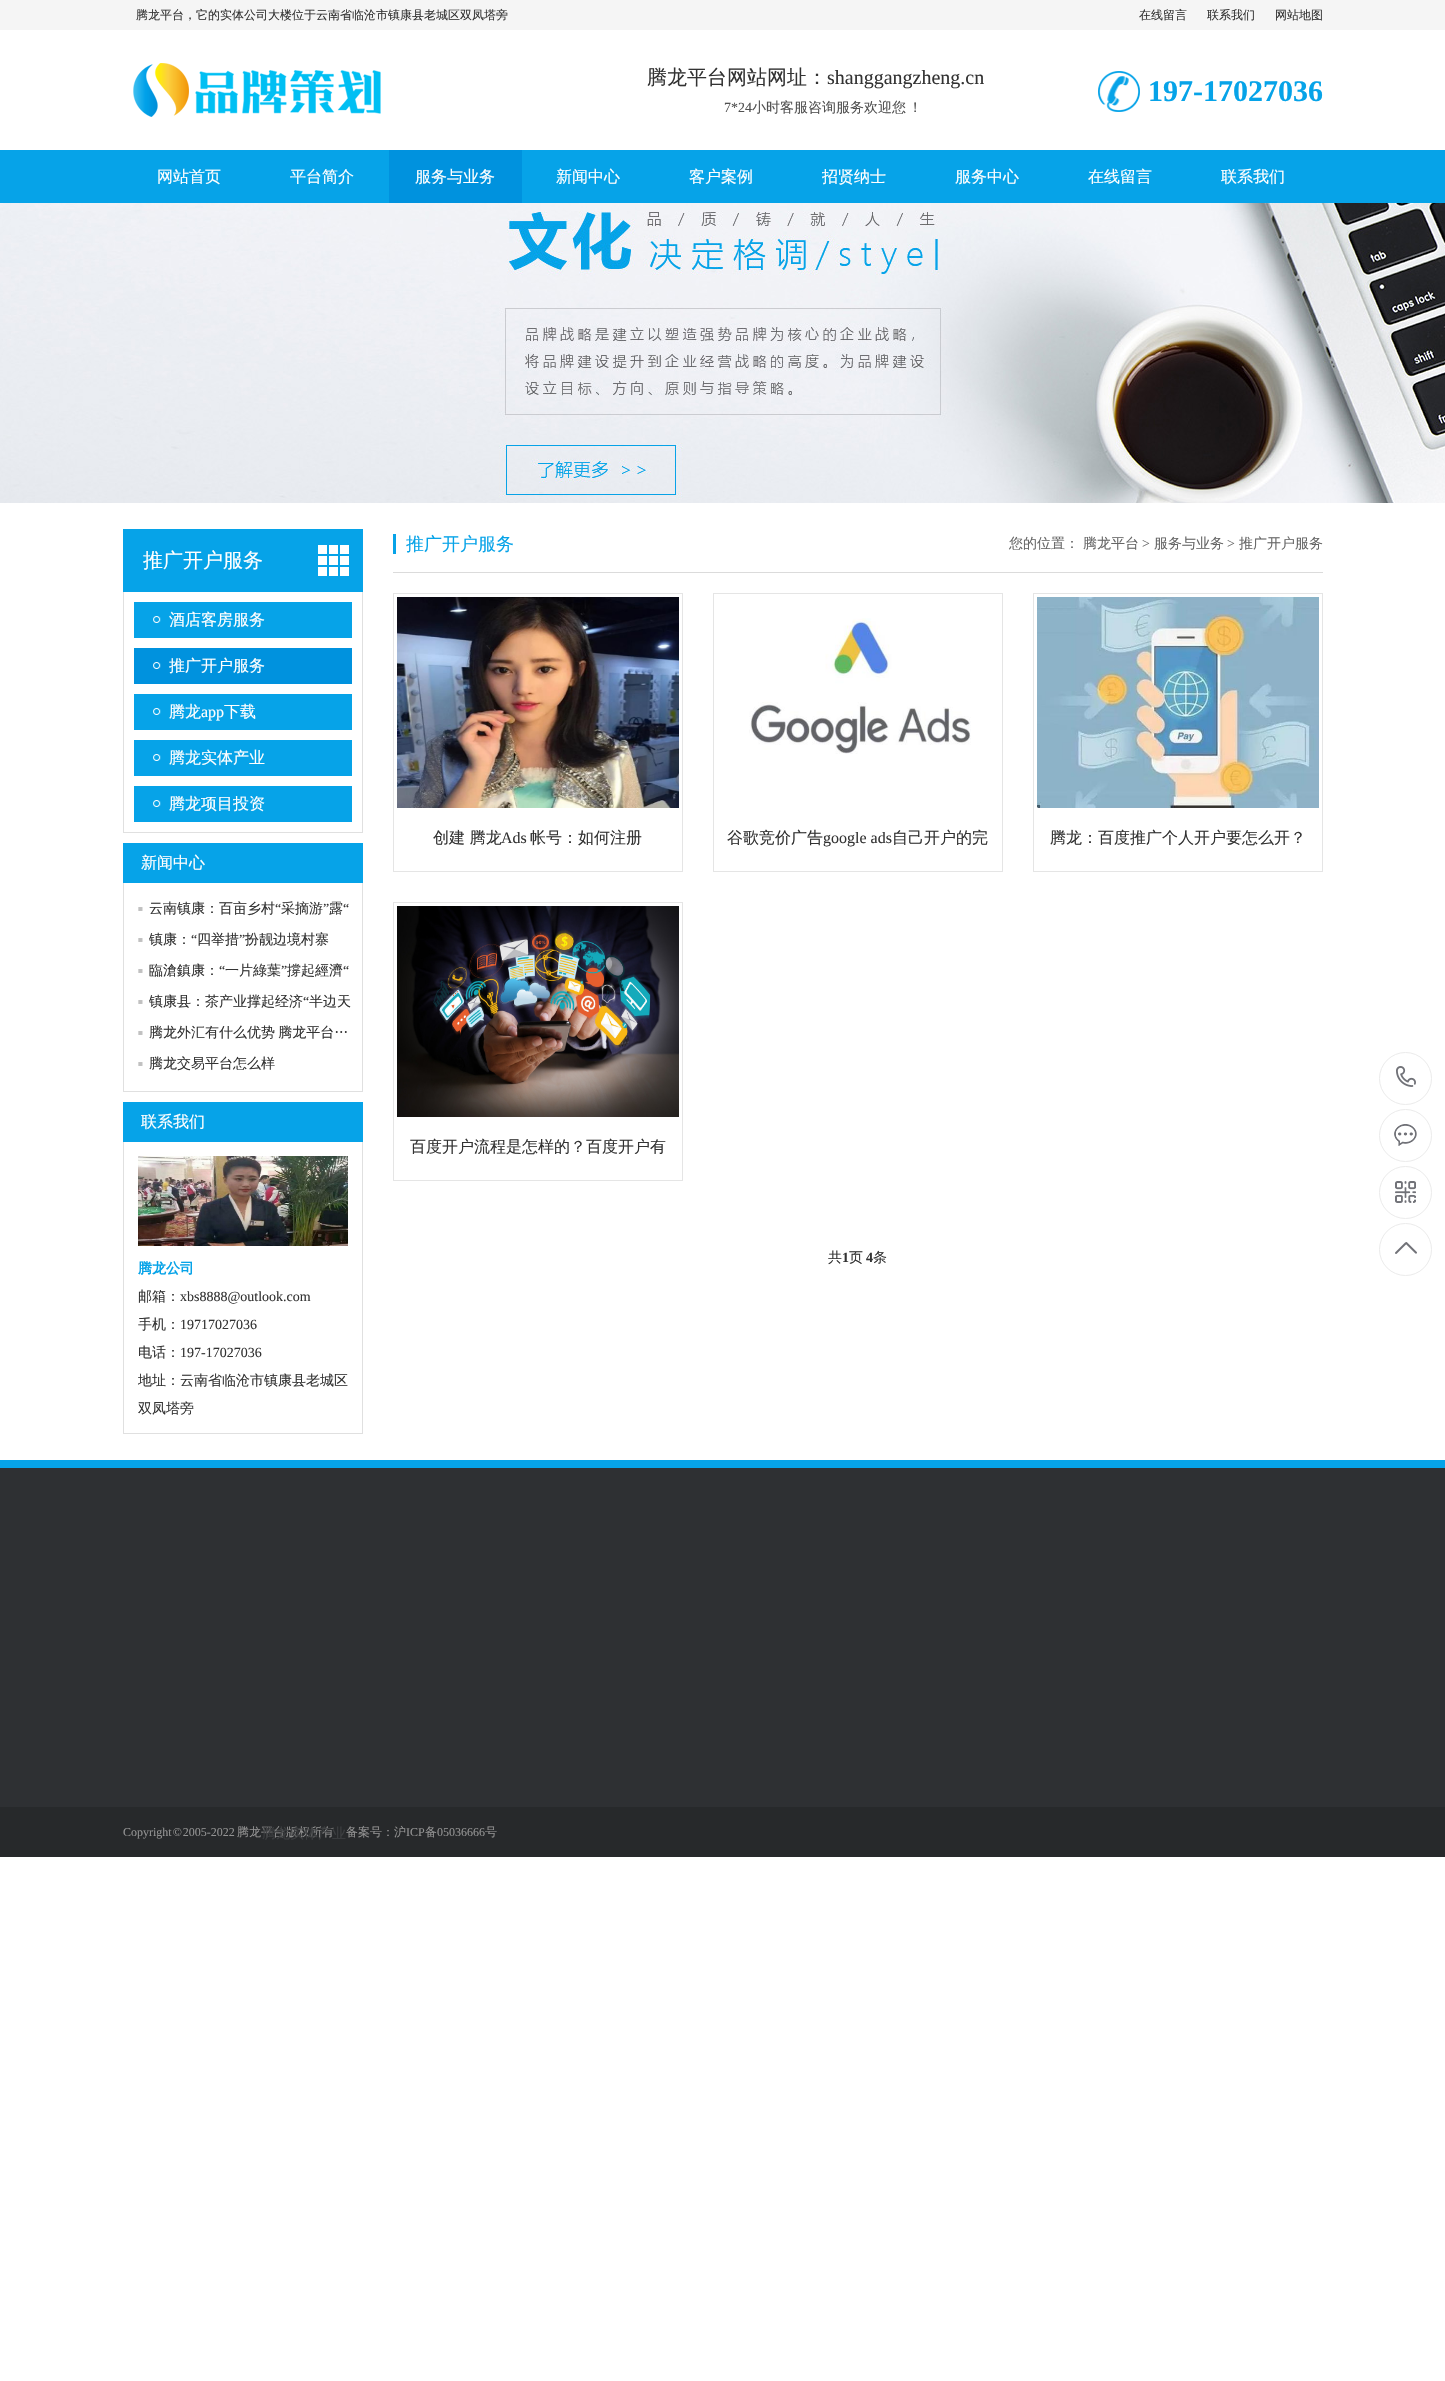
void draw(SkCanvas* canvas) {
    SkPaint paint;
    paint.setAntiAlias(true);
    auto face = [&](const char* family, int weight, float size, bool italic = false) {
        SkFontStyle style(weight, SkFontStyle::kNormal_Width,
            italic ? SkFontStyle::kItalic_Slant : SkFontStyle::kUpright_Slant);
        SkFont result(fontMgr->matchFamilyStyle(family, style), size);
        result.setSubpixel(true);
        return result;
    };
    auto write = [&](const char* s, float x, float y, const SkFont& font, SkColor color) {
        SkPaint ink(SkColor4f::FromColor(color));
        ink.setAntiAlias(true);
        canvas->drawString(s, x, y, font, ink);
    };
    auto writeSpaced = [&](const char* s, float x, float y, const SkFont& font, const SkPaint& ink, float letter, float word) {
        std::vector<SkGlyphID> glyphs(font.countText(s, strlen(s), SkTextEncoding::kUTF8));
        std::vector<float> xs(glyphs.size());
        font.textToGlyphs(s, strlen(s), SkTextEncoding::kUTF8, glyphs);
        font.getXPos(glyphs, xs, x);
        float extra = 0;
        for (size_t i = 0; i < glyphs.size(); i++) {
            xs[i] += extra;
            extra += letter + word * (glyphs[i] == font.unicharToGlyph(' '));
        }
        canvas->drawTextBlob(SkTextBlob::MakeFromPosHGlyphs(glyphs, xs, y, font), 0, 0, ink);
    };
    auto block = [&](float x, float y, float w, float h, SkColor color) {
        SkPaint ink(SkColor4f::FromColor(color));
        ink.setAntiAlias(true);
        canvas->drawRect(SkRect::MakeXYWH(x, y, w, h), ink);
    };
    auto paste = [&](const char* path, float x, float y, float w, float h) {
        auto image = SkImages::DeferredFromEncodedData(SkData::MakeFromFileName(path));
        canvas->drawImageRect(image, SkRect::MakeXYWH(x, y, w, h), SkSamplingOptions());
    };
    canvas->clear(SK_ColorWHITE);
    block(0, 0, 1445, 30, SkColorSetRGB(245, 245, 245));
    auto kFont1 = face("WenQuanYi Zen Hei", 500, 12);
    write("腾龙平台，它的实体公司大楼位于云南省临沧市镇康县老城区双凤塔旁", 136, 19, kFont1, SkColorSetRGB(51, 51, 51));
    write("在线留言", 1139, 19, kFont1, SkColorSetRGB(51, 51, 51));
    write("联系我们", 1207, 19, kFont1, SkColorSetRGB(51, 51, 51));
    write("网站地图", 1275, 19, kFont1, SkColorSetRGB(51, 51, 51));
    paste("pic1.png", 123, 40, 450, 100);
    auto kFont2 = face("WenQuanYi Zen Hei", 500, 20);
    write("腾龙平台网站网址：", 647, 84, kFont2, SkColorSetRGB(51, 51, 51));
    auto kFont3 = face("Liberation Serif", 400, 20);
    write("shanggangzheng.cn", 827, 84, kFont3, SkColorSetRGB(51, 51, 51));
    auto kFont4 = face("Liberation Serif", 400, 14);
    write("7*24", 724, 112, kFont4, SkColorSetRGB(81, 81, 81));
    auto kFont5 = face("WenQuanYi Zen Hei", 500, 14);
    paint.setColor(SkColorSetRGB(81, 81, 81));
    writeSpaced("小时客服咨询服务欢迎您 ！", 752, 112, kFont5, paint, 0, -2);
    paste("pic2.png", 1098, 71, 42, 41);
    auto kFont6 = face("Liberation Serif", 700, 30);
    write("197-17027036", 1148, 101, kFont6, SkColorSetRGB(6, 163, 232));
    block(0, 150, 1445, 53, SkColorSetRGB(6, 163, 232));
    auto kFont7 = face("WenQuanYi Zen Hei", 500, 16);
    write("网站首页", 157, 182, kFont7, SK_ColorWHITE);
    write("平台简介", 290, 182, kFont7, SK_ColorWHITE);
    block(389, 150, 133, 53, SkColorSetRGB(0, 146, 222));
    write("服务与业务", 415, 182, kFont7, SK_ColorWHITE);
    write("新闻中心", 556, 182, kFont7, SK_ColorWHITE);
    write("客户案例", 689, 182, kFont7, SK_ColorWHITE);
    write("招贤纳士", 822, 182, kFont7, SK_ColorWHITE);
    write("服务中心", 955, 182, kFont7, SK_ColorWHITE);
    write("在线留言", 1088, 182, kFont7, SK_ColorWHITE);
    write("联系我们", 1221, 182, kFont7, SK_ColorWHITE);
    paste("pic3.png", 0, 203, 1445, 300);
    block(123, 529, 240, 63, SkColorSetRGB(6, 163, 232));
    paste("pic4.png", 318, 545, 31, 31);
    write("推广开户服务", 143, 567, kFont2, SK_ColorWHITE);
    block(362, 592, 1, 241, SkColorSetRGB(224, 224, 224));
    block(123, 832, 240, 1, SkColorSetRGB(224, 224, 224));
    block(123, 592, 1, 241, SkColorSetRGB(224, 224, 224));
    block(134, 602, 218, 36, SkColorSetRGB(6, 163, 232));
    paste("pic5.png", 153, 616, 8, 7);
    write("酒店客房服务", 169, 625, kFont7, SK_ColorWHITE);
    block(134, 648, 218, 36, SkColorSetRGB(0, 146, 222));
    paste("pic6.png", 153, 662, 8, 7);
    write("推广开户服务", 169, 671, kFont7, SK_ColorWHITE);
    block(134, 694, 218, 36, SkColorSetRGB(6, 163, 232));
    paste("pic5.png", 153, 708, 8, 7);
    write("腾龙", 169, 717, kFont7, SK_ColorWHITE);
    auto kFont8 = face("Liberation Serif", 400, 16);
    write("app", 201, 717, kFont8, SK_ColorWHITE);
    write("下载", 224, 717, kFont7, SK_ColorWHITE);
    block(134, 740, 218, 36, SkColorSetRGB(6, 163, 232));
    paste("pic5.png", 153, 754, 8, 7);
    write("腾龙实体产业", 169, 763, kFont7, SK_ColorWHITE);
    block(134, 786, 218, 36, SkColorSetRGB(6, 163, 232));
    paste("pic5.png", 153, 800, 8, 7);
    write("腾龙项目投资", 169, 809, kFont7, SK_ColorWHITE);
    block(123, 843, 240, 40, SkColorSetRGB(6, 163, 232));
    write("新闻中心", 141, 868, kFont7, SK_ColorWHITE);
    block(362, 883, 1, 209, SkColorSetRGB(224, 224, 224));
    block(123, 1091, 240, 1, SkColorSetRGB(224, 224, 224));
    block(123, 883, 1, 209, SkColorSetRGB(224, 224, 224));
    paste("pic7.png", 138, 907, 5, 4);
    write("云南镇康：百亩乡村", 149, 913, kFont5, SkColorSetRGB(51, 51, 51));
    write("“", 275, 913, kFont4, SkColorSetRGB(51, 51, 51));
    write("采摘游", 281, 913, kFont5, SkColorSetRGB(51, 51, 51));
    write("”", 323, 913, kFont4, SkColorSetRGB(51, 51, 51));
    write("露", 329, 913, kFont5, SkColorSetRGB(51, 51, 51));
    write("“", 343, 913, kFont4, SkColorSetRGB(51, 51, 51));
    paste("pic7.png", 138, 938, 5, 4);
    write("镇康：", 149, 944, kFont5, SkColorSetRGB(51, 51, 51));
    write("“", 191, 944, kFont4, SkColorSetRGB(51, 51, 51));
    write("四举措", 197, 944, kFont5, SkColorSetRGB(51, 51, 51));
    write("”", 239, 944, kFont4, SkColorSetRGB(51, 51, 51));
    write("扮靓边境村寨", 245, 944, kFont5, SkColorSetRGB(51, 51, 51));
    paste("pic7.png", 138, 969, 5, 4);
    write("臨滄鎮康：", 149, 975, kFont5, SkColorSetRGB(51, 51, 51));
    write("“", 219, 975, kFont4, SkColorSetRGB(51, 51, 51));
    write("一片綠葉", 225, 975, kFont5, SkColorSetRGB(51, 51, 51));
    write("”", 281, 975, kFont4, SkColorSetRGB(51, 51, 51));
    write("撐起經濟", 287, 975, kFont5, SkColorSetRGB(51, 51, 51));
    write("“", 343, 975, kFont4, SkColorSetRGB(51, 51, 51));
    paste("pic7.png", 138, 1000, 5, 4);
    write("镇康县：茶产业撑起经济", 149, 1006, kFont5, SkColorSetRGB(51, 51, 51));
    write("“", 303, 1006, kFont4, SkColorSetRGB(51, 51, 51));
    write("半边天", 309, 1006, kFont5, SkColorSetRGB(51, 51, 51));
    paste("pic7.png", 138, 1031, 5, 4);
    paint.setColor(SkColorSetRGB(51, 51, 51));
    writeSpaced("腾龙外汇有什么优势 腾龙平台…", 149, 1037, kFont5, paint, 0, -1);
    paste("pic7.png", 138, 1062, 5, 4);
    write("腾龙交易平台怎么样", 149, 1068, kFont5, SkColorSetRGB(51, 51, 51));
    block(123, 1102, 240, 40, SkColorSetRGB(6, 163, 232));
    write("联系我们", 141, 1127, kFont7, SK_ColorWHITE);
    block(362, 1142, 1, 292, SkColorSetRGB(224, 224, 224));
    block(123, 1433, 240, 1, SkColorSetRGB(224, 224, 224));
    block(123, 1142, 1, 292, SkColorSetRGB(224, 224, 224));
    paste("pic8.png", 138, 1156, 210, 90);
    auto kFont9 = face("WenQuanYi Zen Hei", 700, 14);
    write("腾龙公司", 138, 1273, kFont9, SkColorSetRGB(6, 163, 232));
    write("邮箱：", 138, 1301, kFont5, SkColorSetRGB(51, 51, 51));
    write("xbs8888@outlook.com", 180, 1301, kFont4, SkColorSetRGB(51, 51, 51));
    write("手机：", 138, 1329, kFont5, SkColorSetRGB(51, 51, 51));
    write("19717027036", 180, 1329, kFont4, SkColorSetRGB(51, 51, 51));
    write("电话：", 138, 1357, kFont5, SkColorSetRGB(51, 51, 51));
    write("197-17027036", 180, 1357, kFont4, SkColorSetRGB(51, 51, 51));
    canvas->save();
    canvas->clipRect(SkRect::MakeXYWH(138, 1255, 210, 168));
    write("地址：云南省临沧市镇康县老城区", 138, 1385, kFont5, SkColorSetRGB(51, 51, 51));
    canvas->restore();
    write("双凤塔旁", 138, 1413, kFont5, SkColorSetRGB(51, 51, 51));
    block(393, 572, 930, 1, SkColorSetRGB(219, 219, 219));
    block(393, 534, 3, 20, SkColorSetRGB(6, 163, 232));
    auto kFont10 = face("WenQuanYi Zen Hei", 500, 18);
    write("推广开户服务", 406, 550, kFont10, SkColorSetRGB(6, 163, 232));
    write("您的位置：", 1009, 548, kFont5, SkColorSetRGB(102, 102, 102));
    write("腾龙平台", 1083, 548, kFont5, SkColorSetRGB(102, 102, 102));
    write(">", 1142, 548, kFont4, SkColorSetRGB(102, 102, 102));
    write("服务与业务", 1154, 548, kFont5, SkColorSetRGB(102, 102, 102));
    write(">", 1227, 548, kFont4, SkColorSetRGB(102, 102, 102));
    write("推广开户服务", 1239, 548, kFont5, SkColorSetRGB(102, 102, 102));
    paint.setStyle(SkPaint::kStroke_Style);
    paint.setStrokeWidth(1);
    paint.setColor(SkColorSetRGB(229, 229, 229));
    canvas->drawRect(SkRect::MakeXYWH(393.5f, 593.5f, 289, 278), paint);
    paste("pic9.png", 397, 597, 282, 211);
    write("创建 腾龙", 433, 843, kFont7, SkColorSetRGB(51, 51, 51));
    write("Ads", 501, 843, kFont8, SkColorSetRGB(51, 51, 51));
    write("帐号：如何注册", 530, 843, kFont7, SkColorSetRGB(51, 51, 51));
    canvas->drawRect(SkRect::MakeXYWH(713.5f, 593.5f, 289, 278), paint);
    paste("pic10.png", 749, 618, 222, 136);
    write("谷歌竞价广告", 727, 843, kFont7, SkColorSetRGB(51, 51, 51));
    write("google ads", 823, 843, kFont8, SkColorSetRGB(51, 51, 51));
    write("自己开户的完", 892, 843, kFont7, SkColorSetRGB(51, 51, 51));
    canvas->drawRect(SkRect::MakeXYWH(1033.5f, 593.5f, 289, 278), paint);
    paste("pic11.png", 1037, 597, 282, 211);
    write("腾龙：百度推广个人开户要怎么开？", 1050, 843, kFont7, SkColorSetRGB(51, 51, 51));
    canvas->drawRect(SkRect::MakeXYWH(393.5f, 902.5f, 289, 278), paint);
    paste("pic12.png", 397, 906, 282, 211);
    write("百度开户流程是怎样的？百度开户有", 410, 1152, kFont7, SkColorSetRGB(51, 51, 51));
    write("共", 828, 1262, kFont5, SkColorSetRGB(51, 51, 51));
    auto kFont11 = face("Liberation Serif", 700, 14);
    write("1", 842, 1262, kFont11, SkColorSetRGB(51, 51, 51));
    write("页", 849, 1262, kFont5, SkColorSetRGB(51, 51, 51));
    write("4", 866, 1262, kFont11, SkColorSetRGB(51, 51, 51));
    write("条", 873, 1262, kFont5, SkColorSetRGB(51, 51, 51));
    paint.setColor(SkColorSetRGB(235, 235, 235));
    canvas->drawCircle(1405.5f, 1078.5f, 26, paint);
    paste("pic13.png", 1396, 1066, 20, 21);
    canvas->drawCircle(1405.5f, 1135.5f, 26, paint);
    paste("pic14.png", 1394, 1124, 23, 22);
    canvas->drawCircle(1405.5f, 1192.5f, 26, paint);
    paste("pic15.png", 1395, 1181, 21, 22);
    canvas->drawCircle(1405.5f, 1249.5f, 26, paint);
    paste("pic16.png", 1395, 1242, 22, 12);
    block(0, 1807, 1445, 50, SkColorSetRGB(39, 41, 43));
    auto kFont12 = face("Liberation Serif", 400, 12);
    paint.setStyle(SkPaint::kFill_Style);
    paint.setColor(SkColorSetRGB(147, 147, 147));
    writeSpaced("Copyright © 2005-2022", 123, 1836, kFont12, paint, 0, -2);
    write("腾龙平台", 237, 1836, kFont1, SkColorSetRGB(147, 147, 147));
    write("版权所有　备案号：沪", 286, 1836, kFont1, SkColorSetRGB(147, 147, 147));
    write("ICP", 406, 1836, kFont12, SkColorSetRGB(147, 147, 147));
    write("备", 425, 1836, kFont1, SkColorSetRGB(147, 147, 147));
    write("05036666", 437, 1836, kFont12, SkColorSetRGB(147, 147, 147));
    write("号", 485, 1836, kFont1, SkColorSetRGB(147, 147, 147));
    block(0, 1468, 1445, 339, SkColorSetRGB(46, 48, 51));
    block(0, 1460, 1445, 8, SkColorSetRGB(6, 163, 232));
    write("腾龙实体产业", 262, 1838, kFont5, SkColorSetRGB(60, 62, 64));
}
